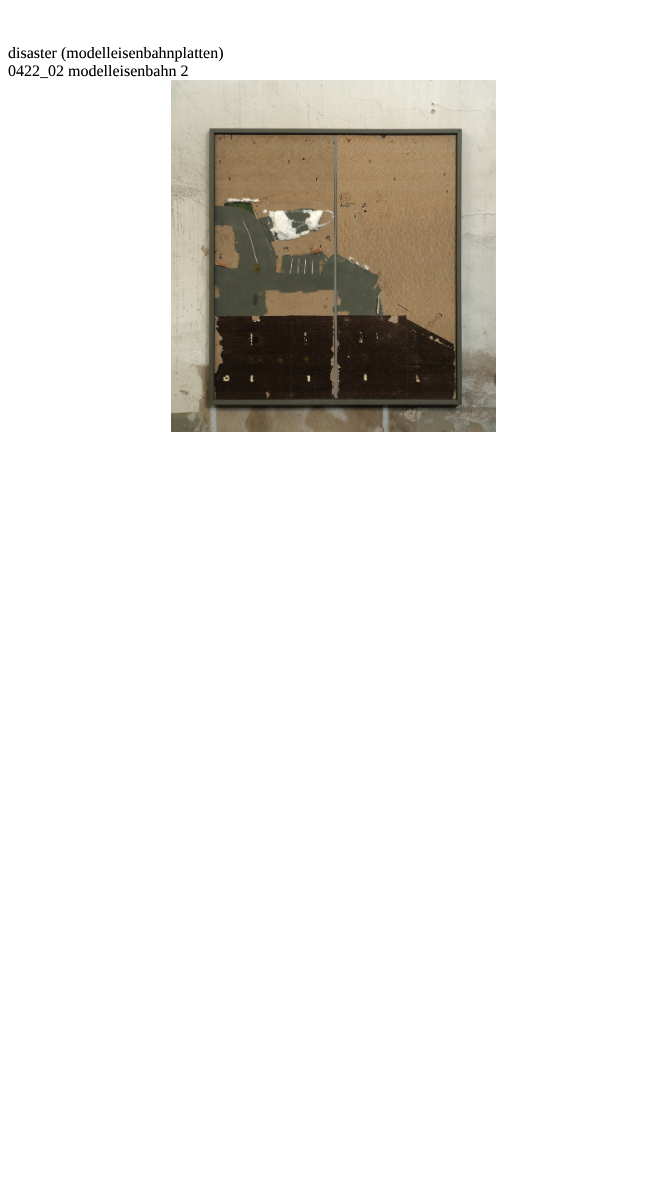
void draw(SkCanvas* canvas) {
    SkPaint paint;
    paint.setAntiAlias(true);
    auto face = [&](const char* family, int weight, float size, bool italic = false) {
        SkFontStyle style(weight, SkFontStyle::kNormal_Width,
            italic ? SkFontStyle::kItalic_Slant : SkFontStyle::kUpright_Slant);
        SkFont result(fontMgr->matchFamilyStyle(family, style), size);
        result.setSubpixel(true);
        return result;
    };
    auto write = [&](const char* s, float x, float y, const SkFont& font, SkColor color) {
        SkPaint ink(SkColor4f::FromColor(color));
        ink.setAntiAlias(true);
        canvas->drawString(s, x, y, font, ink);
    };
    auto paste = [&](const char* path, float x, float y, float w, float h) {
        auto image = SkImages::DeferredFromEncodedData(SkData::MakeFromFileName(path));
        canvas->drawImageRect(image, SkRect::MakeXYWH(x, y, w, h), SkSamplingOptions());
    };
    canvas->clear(SK_ColorWHITE);
    auto kFont1 = face("Liberation Serif", 400, 16);
    write("disaster (modelleisenbahnplatten)", 8, 58, kFont1, SK_ColorBLACK);
    write("0422_02 modelleisenbahn 2", 8, 76, kFont1, SK_ColorBLACK);
    paste("pic1.png", 171, 80, 325, 352);
}
